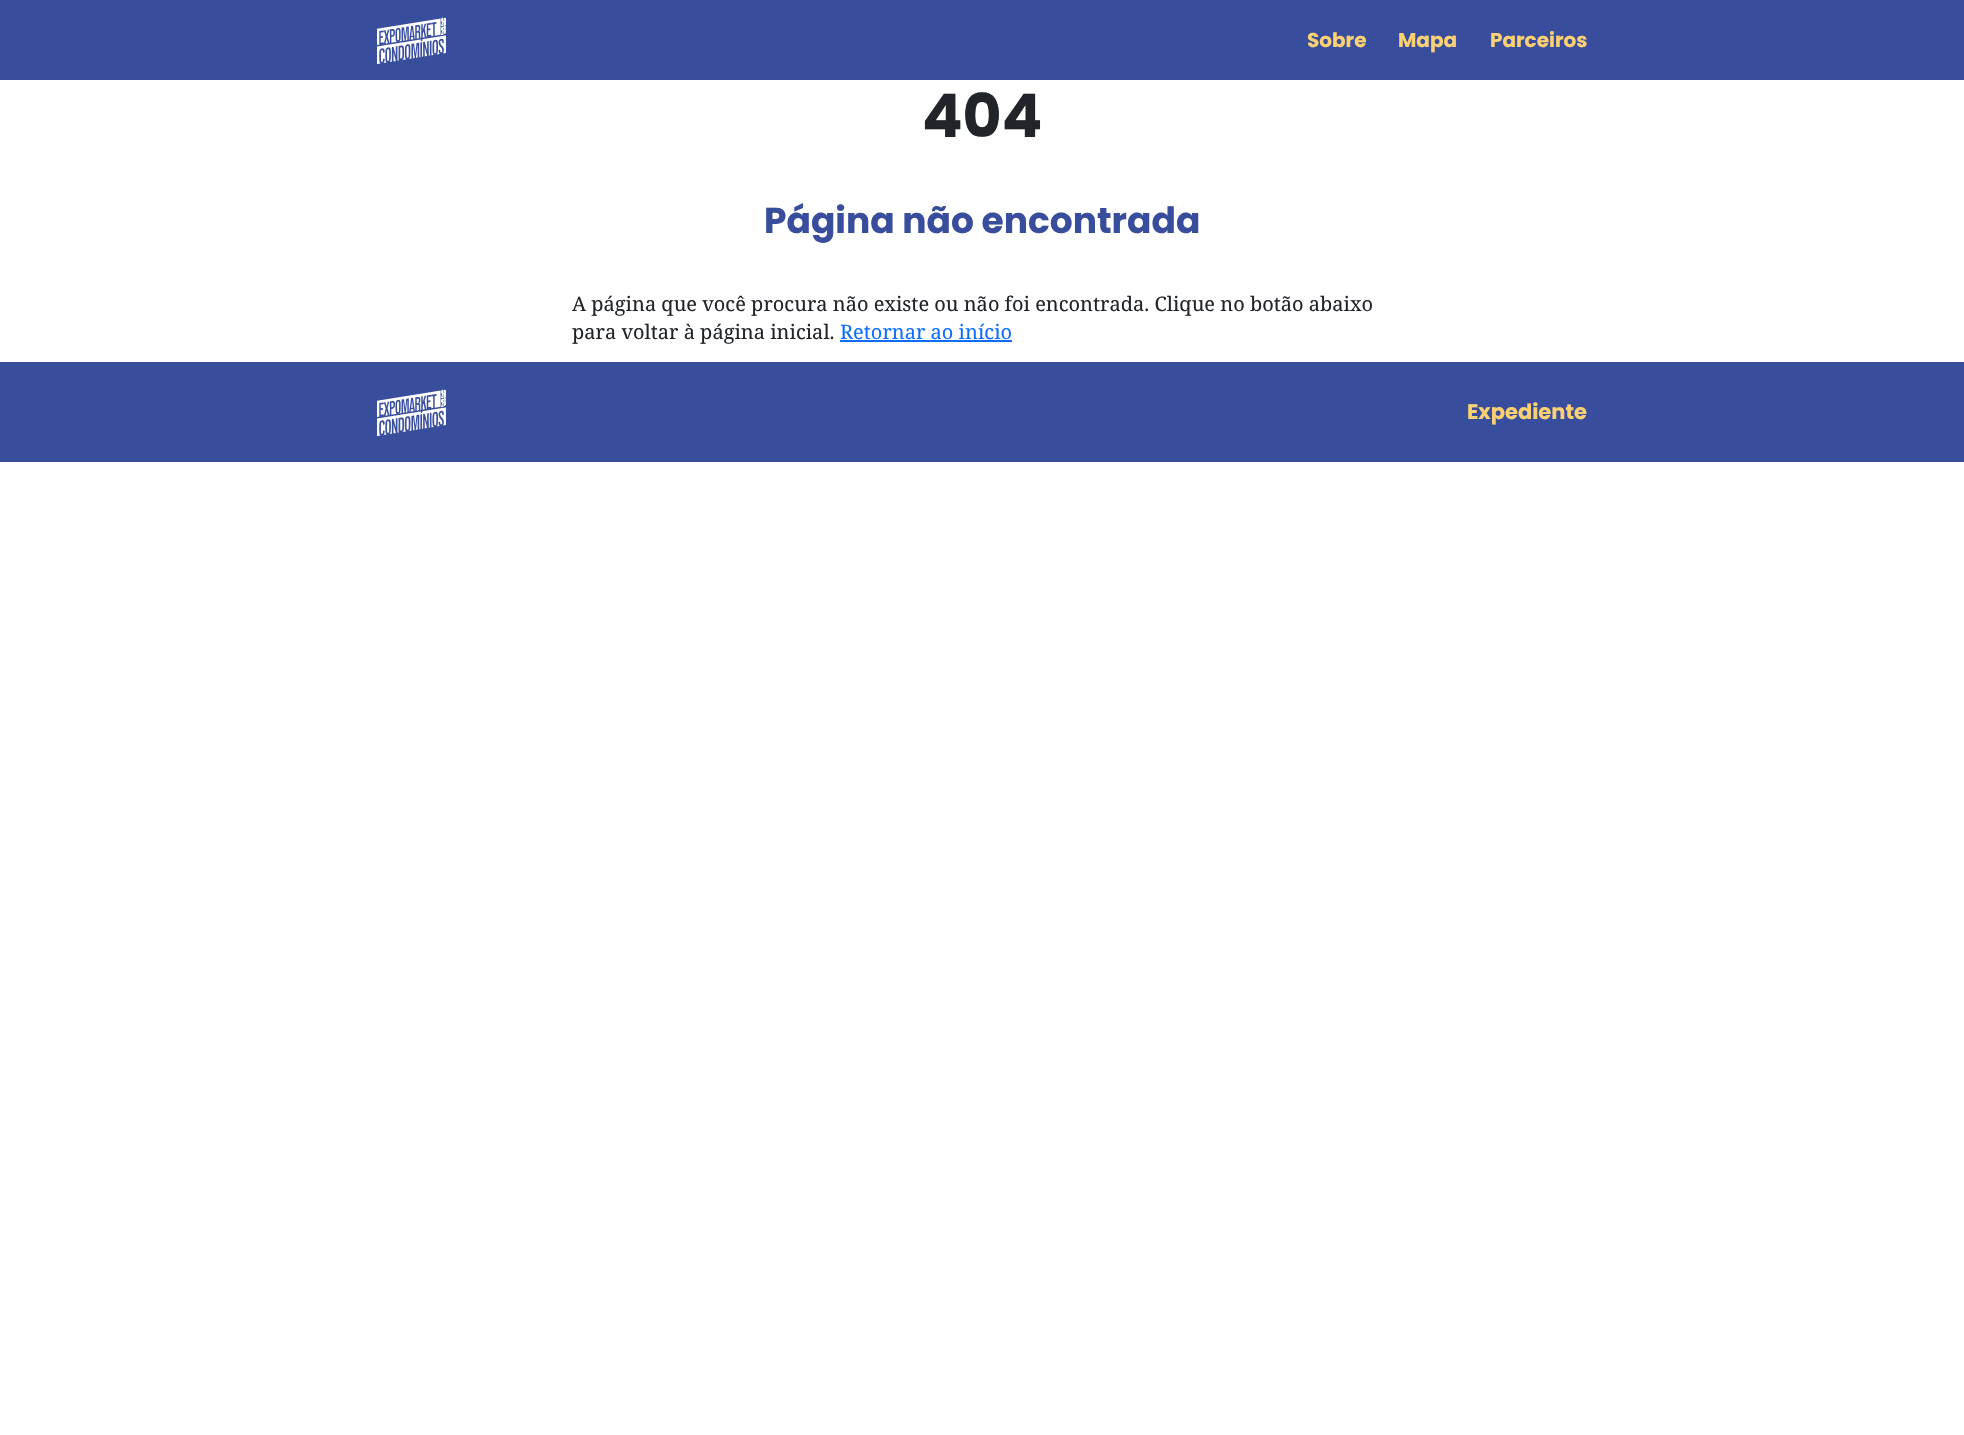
void draw(SkCanvas* canvas) {
    SkPaint paint;
    paint.setAntiAlias(true);
    auto face = [&](const char* family, int weight, float size, bool italic = false) {
        SkFontStyle style(weight, SkFontStyle::kNormal_Width,
            italic ? SkFontStyle::kItalic_Slant : SkFontStyle::kUpright_Slant);
        SkFont result(fontMgr->matchFamilyStyle(family, style), size);
        result.setSubpixel(true);
        return result;
    };
    auto write = [&](const char* s, float x, float y, const SkFont& font, SkColor color) {
        SkPaint ink(SkColor4f::FromColor(color));
        ink.setAntiAlias(true);
        canvas->drawString(s, x, y, font, ink);
    };
    auto block = [&](float x, float y, float w, float h, SkColor color) {
        SkPaint ink(SkColor4f::FromColor(color));
        ink.setAntiAlias(true);
        canvas->drawRect(SkRect::MakeXYWH(x, y, w, h), ink);
    };
    auto paste = [&](const char* path, float x, float y, float w, float h) {
        auto image = SkImages::DeferredFromEncodedData(SkData::MakeFromFileName(path));
        canvas->drawImageRect(image, SkRect::MakeXYWH(x, y, w, h), SkSamplingOptions());
    };
    canvas->clear(SK_ColorWHITE);
    block(0, 0, 1964, 80, SkColorSetRGB(56, 77, 156));
    paste("pic1.png", 377, 17, 69, 47);
    auto kFont1 = face("Poppins", 700, 20);
    write("Sobre", 1307, 47, kFont1, SkColorSetRGB(253, 208, 114));
    write("Mapa", 1398, 47, kFont1, SkColorSetRGB(253, 208, 114));
    write("Parceiros", 1490, 47, kFont1, SkColorSetRGB(253, 208, 114));
    auto kFont2 = face("Poppins", 700, 60);
    write("404", 922, 137, kFont2, SkColorSetRGB(33, 37, 41));
    auto kFont3 = face("Poppins", 700, 36);
    write("Página não encontrada", 764, 233, kFont3, SkColorSetRGB(56, 77, 156));
    auto kFont4 = face("Noto Serif", 400, 20);
    write("A página que você procura não existe ou não foi encontrada. Clique no botão abaixo", 572, 311, kFont4, SkColorSetRGB(33, 37, 41));
    write("para voltar à página inicial.", 572, 339, kFont4, SkColorSetRGB(33, 37, 41));
    write("Retornar ao início", 840, 339, kFont4, SkColorSetRGB(13, 110, 253));
    block(840, 340, 172, 2, SkColorSetRGB(13, 110, 253));
    block(0, 362, 1964, 100, SkColorSetRGB(56, 77, 156));
    paste("pic1.png", 377, 389, 69, 47);
    auto kFont5 = face("Poppins", 700, 21);
    write("Expediente", 1467, 419, kFont5, SkColorSetRGB(253, 208, 114));
}
